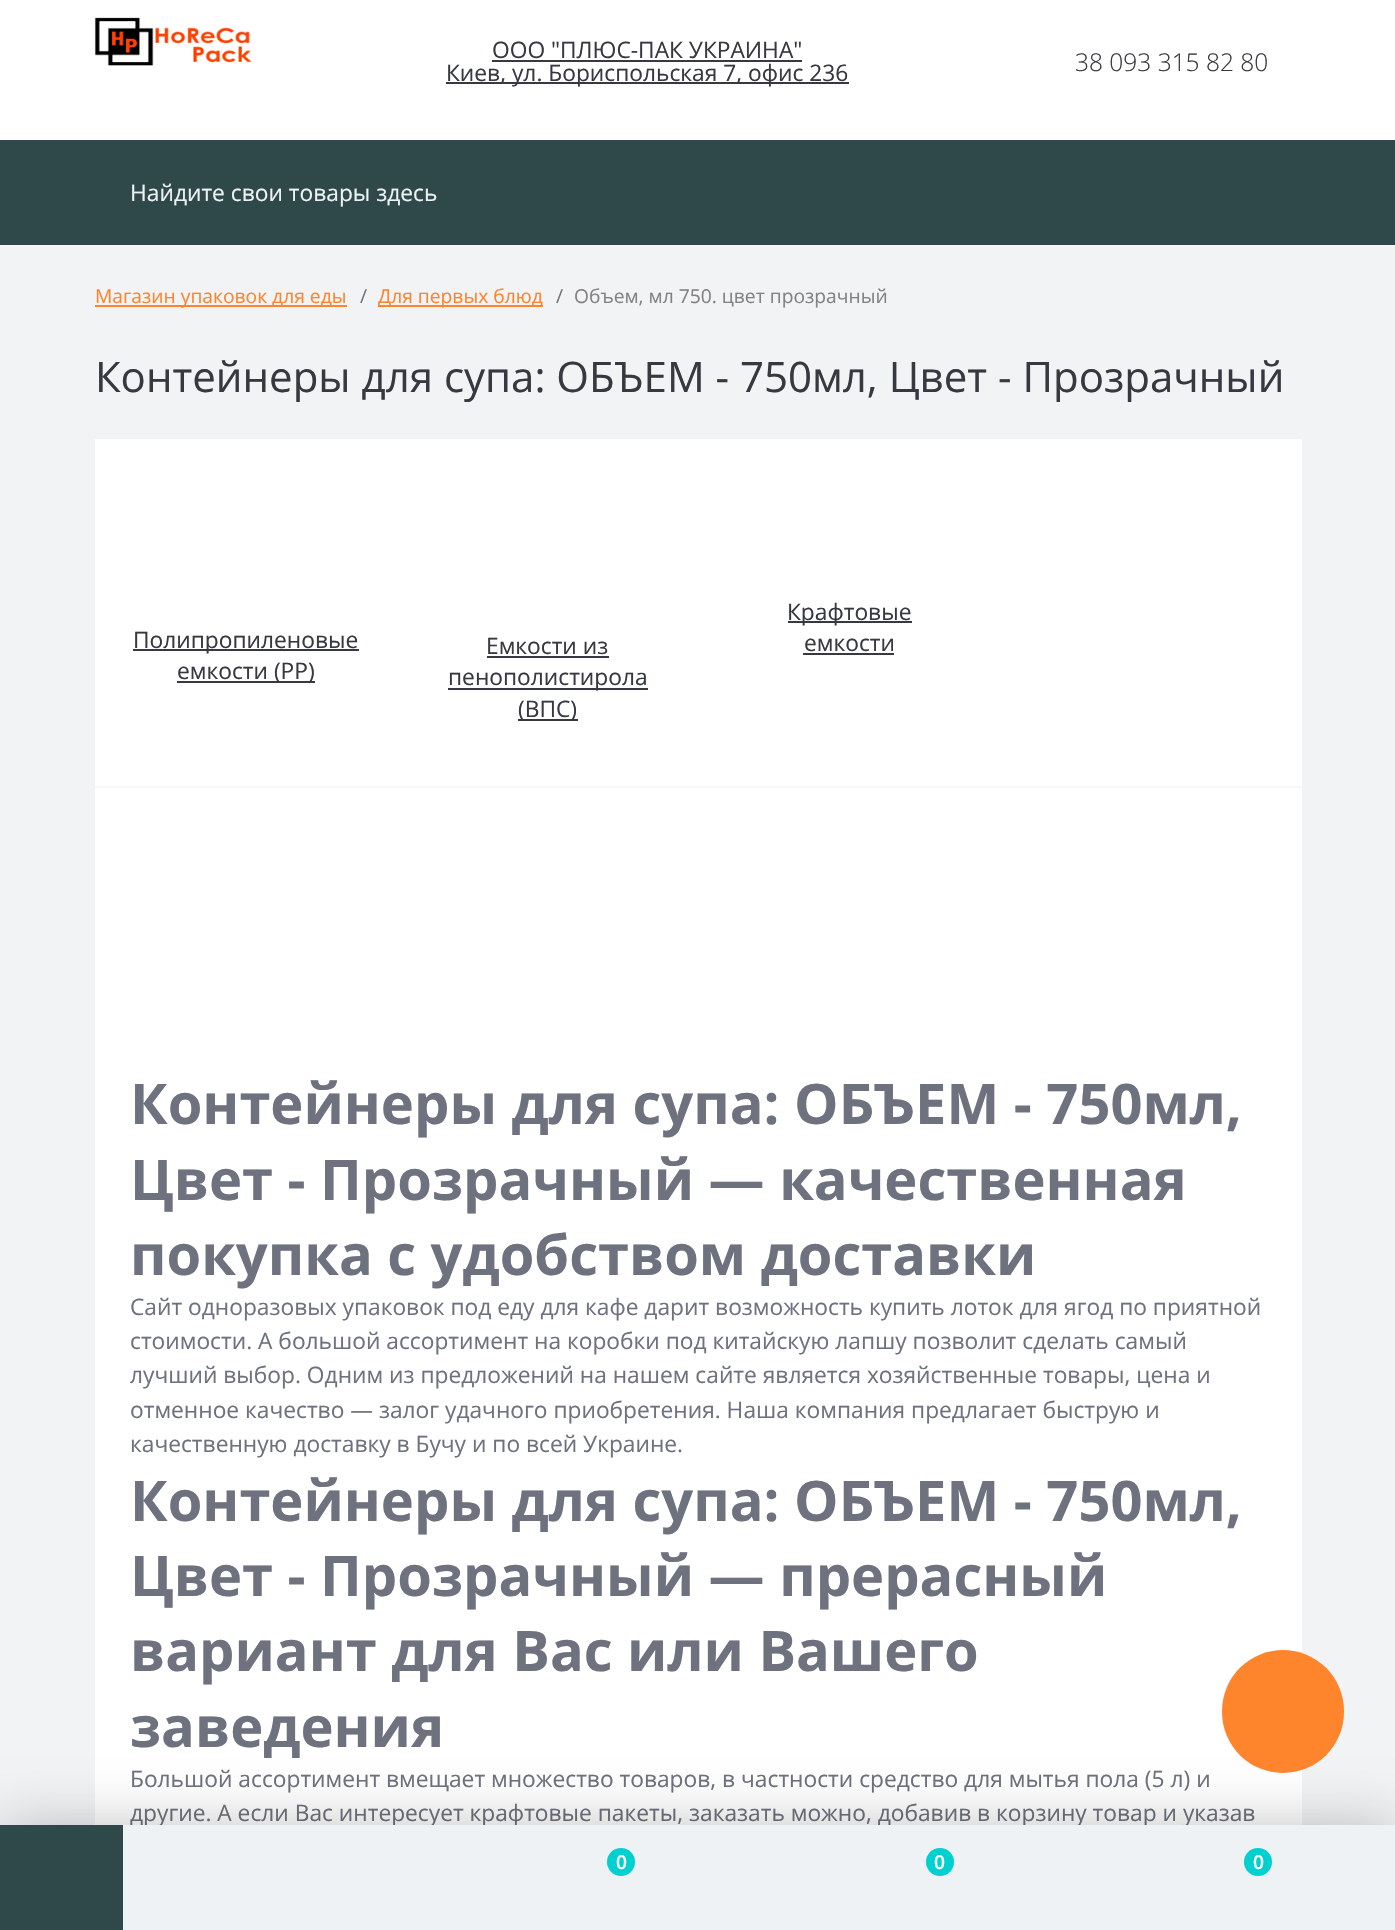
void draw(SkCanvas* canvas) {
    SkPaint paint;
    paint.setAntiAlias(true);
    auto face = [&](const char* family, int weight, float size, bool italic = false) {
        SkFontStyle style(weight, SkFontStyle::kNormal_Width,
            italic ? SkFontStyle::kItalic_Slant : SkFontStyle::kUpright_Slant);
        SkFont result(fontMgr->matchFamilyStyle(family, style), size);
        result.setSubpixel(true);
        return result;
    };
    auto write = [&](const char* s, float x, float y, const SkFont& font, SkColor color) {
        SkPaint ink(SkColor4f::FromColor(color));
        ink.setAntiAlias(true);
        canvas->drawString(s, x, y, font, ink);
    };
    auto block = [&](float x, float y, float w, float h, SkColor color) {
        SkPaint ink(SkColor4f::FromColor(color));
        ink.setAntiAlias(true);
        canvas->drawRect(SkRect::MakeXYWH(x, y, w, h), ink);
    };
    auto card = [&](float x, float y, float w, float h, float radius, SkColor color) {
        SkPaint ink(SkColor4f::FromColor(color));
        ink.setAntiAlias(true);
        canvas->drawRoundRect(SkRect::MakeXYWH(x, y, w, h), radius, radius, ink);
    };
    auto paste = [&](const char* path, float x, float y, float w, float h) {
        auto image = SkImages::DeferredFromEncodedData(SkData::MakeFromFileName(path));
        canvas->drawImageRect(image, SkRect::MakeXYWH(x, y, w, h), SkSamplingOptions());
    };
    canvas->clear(SkColorSetRGB(242, 243, 245));
    block(0, 0, 1395, 140, SK_ColorWHITE);
    paste("pic1.png", 94, 17, 158, 49);
    auto kFont1 = face("Open Sans", 400, 22.75f);
    write("ООО \"ПЛЮС-ПАК УКРАИНА\"", 492, 58, kFont1, SkColorSetRGB(55, 57, 65));
    block(492, 60, 310, 2, SkColorSetRGB(55, 57, 65));
    block(446, 82, 403, 2, SkColorSetRGB(55, 57, 65));
    write("Киев, ул. Бориспольская 7, офис 236", 446, 81, kFont1, SkColorSetRGB(55, 57, 65));
    auto kFont2 = face("Open Sans", 300, 24.5f);
    write("38 093 315 82 80", 1075, 71, kFont2, SkColorSetRGB(55, 57, 65));
    block(0, 140, 1395, 105, SkColorSetRGB(47, 73, 74));
    write("Найдите свои товары здесь", 130, 201, kFont1, SkColorSetRGB(238, 242, 245));
    block(95, 305, 252, 2, SkColorSetRGB(255, 133, 45));
    auto kFont3 = face("Open Sans", 400, 19.25f);
    write("Магазин упаковок для еды", 95, 303, kFont3, SkColorSetRGB(255, 133, 45));
    write("/", 360, 303, kFont3, SkColorSetRGB(110, 114, 126));
    block(378, 305, 165, 2, SkColorSetRGB(255, 133, 45));
    write("Для первых блюд", 378, 303, kFont3, SkColorSetRGB(255, 133, 45));
    write("/", 556, 303, kFont3, SkColorSetRGB(110, 114, 126));
    write("Объем, мл 750. цвет прозрачный", 574, 303, kFont3, SkColorSetRGB(130, 130, 130));
    auto kFont4 = face("Open Sans", 400, 42);
    write("Контейнеры для супа: ОБЪЕМ - 750мл, Цвет - Прозрачный", 95, 392, kFont4, SkColorSetRGB(55, 57, 65));
    block(95, 439, 1207, 1386, SK_ColorWHITE);
    block(95, 786, 1207, 2, SkColorSetRGB(247, 247, 247));
    block(133, 649, 226, 2, SkColorSetRGB(55, 57, 65));
    write("Полипропиленовые", 133, 648, kFont1, SkColorSetRGB(55, 57, 65));
    block(177, 681, 138, 2, SkColorSetRGB(55, 57, 65));
    write("емкости (PP)", 177, 679, kFont1, SkColorSetRGB(55, 57, 65));
    write("Емкости из", 486, 654, kFont1, SkColorSetRGB(55, 57, 65));
    block(487, 656, 122, 2, SkColorSetRGB(55, 57, 65));
    block(448, 688, 200, 2, SkColorSetRGB(55, 57, 65));
    write("пенополистирола", 448, 685, kFont1, SkColorSetRGB(55, 57, 65));
    block(518, 719, 60, 2, SkColorSetRGB(55, 57, 65));
    write("(ВПС)", 518, 717, kFont1, SkColorSetRGB(55, 57, 65));
    block(788, 621, 124, 2, SkColorSetRGB(55, 57, 65));
    write("Крафтовые", 787, 620, kFont1, SkColorSetRGB(55, 57, 65));
    write("емкости", 804, 651, kFont1, SkColorSetRGB(55, 57, 65));
    block(803, 653, 91, 2, SkColorSetRGB(55, 57, 65));
    auto kFont5 = face("Open Sans", 700, 56);
    write("Контейнеры для супа: ОБЪЕМ - 750мл,", 130, 1124, kFont5, SkColorSetRGB(110, 114, 126));
    write("Цвет - Прозрачный — качественная", 130, 1200, kFont5, SkColorSetRGB(110, 114, 126));
    write("покупка с удобством доставки", 130, 1275, kFont5, SkColorSetRGB(110, 114, 126));
    write("Сайт одноразовых упаковок под еду для кафе дарит возможность купить лоток для ягод по приятной", 130, 1315, kFont1, SkColorSetRGB(110, 114, 126));
    write("стоимости. А большой ассортимент на коробки под китайскую лапшу позволит сделать самый", 130, 1349, kFont1, SkColorSetRGB(110, 114, 126));
    write("лучший выбор. Одним из предложений на нашем сайте является хозяйственные товары, цена и", 130, 1383, kFont1, SkColorSetRGB(110, 114, 126));
    write("отменное качество — залог удачного приобретения. Наша компания предлагает быструю и", 130, 1418, kFont1, SkColorSetRGB(110, 114, 126));
    write("качественную доставку в Бучу и по всей Украине.", 130, 1452, kFont1, SkColorSetRGB(110, 114, 126));
    write("Контейнеры для супа: ОБЪЕМ - 750мл,", 130, 1521, kFont5, SkColorSetRGB(110, 114, 126));
    write("Цвет - Прозрачный — прерасный", 130, 1596, kFont5, SkColorSetRGB(110, 114, 126));
    write("вариант для Вас или Вашего", 130, 1671, kFont5, SkColorSetRGB(110, 114, 126));
    write("заведения", 130, 1747, kFont5, SkColorSetRGB(110, 114, 126));
    write("Большой ассортимент вмещает множество товаров, в частности средство для мытья пола (5 л) и", 130, 1787, kFont1, SkColorSetRGB(110, 114, 126));
    write("другие. А если Вас интересует крафтовые пакеты, заказать можно, добавив в корзину товар и указав", 130, 1821, kFont1, SkColorSetRGB(110, 114, 126));
    card(1222, 1650, 122, 123, 61, SkColorSetRGB(255, 133, 45));
    paint.setColor(SkColorSetARGB(59, 0, 0, 0));
    paint.setMaskFilter(SkMaskFilter::MakeBlur(kNormal_SkBlurStyle, 29));
    canvas->drawRect(SkRect::MakeXYWH(0, 1825, 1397, 105), paint);
    paint.setMaskFilter(nullptr);
    block(123, 1825, 1272, 105, SkColorSetRGB(238, 242, 245));
    block(0, 1825, 123, 105, SkColorSetRGB(47, 73, 74));
    paint.setColor(SkColorSetRGB(0, 208, 208));
    canvas->drawCircle(621, 1862, 14, paint);
    auto kFont6 = face("Open Sans", 600, 19.25f);
    write("0", 616, 1869, kFont6, SK_ColorWHITE);
    canvas->drawCircle(940, 1862, 14, paint);
    write("0", 934, 1869, kFont6, SK_ColorWHITE);
    canvas->drawCircle(1258, 1862, 14, paint);
    write("0", 1253, 1869, kFont6, SK_ColorWHITE);
}
